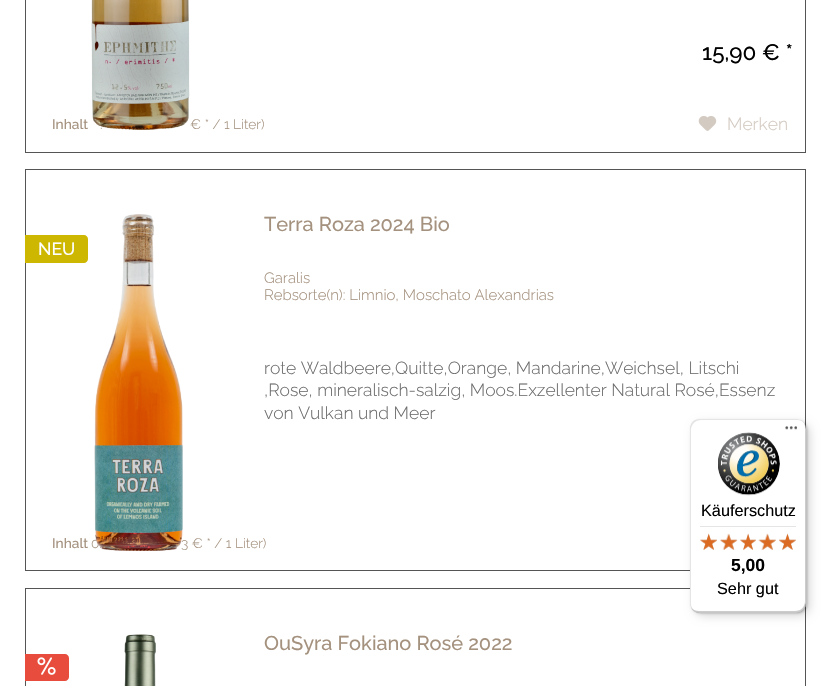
void draw(SkCanvas* canvas) {
    SkPaint paint;
    paint.setAntiAlias(true);
    auto face = [&](const char* family, int weight, float size, bool italic = false) {
        SkFontStyle style(weight, SkFontStyle::kNormal_Width,
            italic ? SkFontStyle::kItalic_Slant : SkFontStyle::kUpright_Slant);
        SkFont result(fontMgr->matchFamilyStyle(family, style), size);
        result.setSubpixel(true);
        return result;
    };
    auto write = [&](const char* s, float x, float y, const SkFont& font, SkColor color) {
        SkPaint ink(SkColor4f::FromColor(color));
        ink.setAntiAlias(true);
        canvas->drawString(s, x, y, font, ink);
    };
    auto block = [&](float x, float y, float w, float h, SkColor color) {
        SkPaint ink(SkColor4f::FromColor(color));
        ink.setAntiAlias(true);
        canvas->drawRect(SkRect::MakeXYWH(x, y, w, h), ink);
    };
    auto card = [&](float x, float y, float w, float h, float radius, SkColor color) {
        SkPaint ink(SkColor4f::FromColor(color));
        ink.setAntiAlias(true);
        canvas->drawRoundRect(SkRect::MakeXYWH(x, y, w, h), radius, radius, ink);
    };
    auto paste = [&](const char* path, float x, float y, float w, float h) {
        auto image = SkImages::DeferredFromEncodedData(SkData::MakeFromFileName(path));
        canvas->drawImageRect(image, SkRect::MakeXYWH(x, y, w, h), SkSamplingOptions());
    };
    canvas->clear(SK_ColorWHITE);
    paint.setStyle(SkPaint::kStroke_Style);
    paint.setStrokeWidth(1);
    paint.setColor(SkColorSetRGB(85, 85, 85));
    canvas->drawRect(SkRect::MakeXYWH(25.5f, -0.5f, 780, 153), paint);
    auto kFont1 = face("Raleway", 300, 13.75f);
    write(".", 100, 129, kFont1, SkColorSetRGB(164, 145, 126));
    paste("pic1.png", 91, 0, 99, 130);
    auto kFont2 = face("Raleway", 500, 22.5f);
    write("15,90 € *", 702, 60, kFont2, SK_ColorBLACK);
    auto kFont3 = face("Raleway", 500, 13.75f);
    write("Inhalt", 52, 129, kFont3, SkColorSetRGB(164, 145, 126));
    write("€ * / 1 Liter)", 190, 129, kFont1, SkColorSetRGB(164, 145, 126));
    paste("pic2.png", 698, 116, 19, 15);
    auto kFont4 = face("Raleway", 300, 17.5f);
    write("Merken", 727, 130, kFont4, SkColorSetRGB(211, 202, 193));
    canvas->drawRect(SkRect::MakeXYWH(25.5f, 169.5f, 780, 401), paint);
    write("0.", 91, 548, kFont1, SkColorSetRGB(164, 145, 126));
    write("3 € * / 1 Liter)", 181, 548, kFont1, SkColorSetRGB(164, 145, 126));
    paste("pic3.png", 94, 214, 89, 337);
    auto kFont5 = face("Raleway", 500, 20);
    write("Terra Roza 2024 Bio", 264, 231, kFont5, SkColorSetRGB(164, 145, 126));
    auto kFont6 = face("Raleway", 300, 15);
    write("Garalis", 264, 283, kFont6, SkColorSetRGB(164, 145, 126));
    write("Rebsorte(n): Limnio, Moschato Alexandrias", 264, 300, kFont6, SkColorSetRGB(164, 145, 126));
    write("rote Waldbeere,Quitte,Orange, Mandarine,Weichsel, Litschi", 264, 374, kFont4, SkColorSetRGB(108, 108, 108));
    write(",Rose, mineralisch-salzig, Moos.Exzellenter Natural Rosé,Essenz", 264, 396, kFont4, SkColorSetRGB(108, 108, 108));
    write("von Vulkan und Meer", 264, 419, kFont4, SkColorSetRGB(108, 108, 108));
    write("Inhalt", 52, 548, kFont3, SkColorSetRGB(164, 145, 126));
    paint.setStyle(SkPaint::kFill_Style);
    paint.setColor(SkColorSetRGB(205, 183, 0));
    canvas->drawPath(SkPathBuilder().moveTo(25, 235).lineTo(84, 235).cubicTo(86, 235, 88, 237, 88, 239).lineTo(88, 259).cubicTo(88, 261, 86, 263, 84, 263).lineTo(25, 263).close().detach(), paint);
    auto kFont7 = face("Raleway", 500, 17.5f);
    write("NEU", 38, 255, kFont7, SK_ColorWHITE);
    paint.setStyle(SkPaint::kStroke_Style);
    paint.setColor(SkColorSetRGB(85, 85, 85));
    canvas->drawRect(SkRect::MakeXYWH(25.5f, 588.5f, 780, 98), paint);
    paste("pic4.png", 124, 634, 32, 52);
    write("OuSyra Fokiano Rosé 2022", 264, 650, kFont5, SkColorSetRGB(164, 145, 126));
    paint.setStyle(SkPaint::kFill_Style);
    paint.setColor(SkColorSetRGB(231, 76, 60));
    canvas->drawPath(SkPathBuilder().moveTo(25, 654).lineTo(65, 654).cubicTo(67, 654, 69, 656, 69, 658).lineTo(69, 677).cubicTo(69, 679, 67, 681, 65, 681).lineTo(25, 681).close().detach(), paint);
    paste("pic5.png", 37, 657, 19, 18);
    paint.setColor(SkColorSetARGB(38, 0, 0, 0));
    paint.setMaskFilter(SkMaskFilter::MakeBlur(kNormal_SkBlurStyle, 5));
    canvas->drawRoundRect(SkRect::MakeXYWH(694, 423, 116, 193), 10, 10, paint);
    paint.setMaskFilter(nullptr);
    paint.setMaskFilter(SkMaskFilter::MakeBlur(kNormal_SkBlurStyle, 1));
    canvas->drawRoundRect(SkRect::MakeXYWH(691, 420, 117, 194), 10, 10, paint);
    paint.setMaskFilter(nullptr);
    card(690, 419, 116, 194, 10, SK_ColorWHITE);
    paint.setColor(SkColorSetARGB(26, 0, 0, 0));
    canvas->drawPath(SkPathBuilder().moveTo(701, 420).lineTo(798, 420).lineTo(802, 421).cubicTo(800, 420, 798, 419, 796, 419).lineTo(700, 419).cubicTo(694, 419, 690, 423, 690, 429).lineTo(690, 603).cubicTo(690, 607, 692, 610, 695, 612).cubicTo(693, 610, 691, 607, 691, 604).lineTo(691, 430).cubicTo(691, 424, 696, 420, 701, 420).close().detach(), paint);
    paint.setColor(SkColorSetARGB(51, 0, 0, 0));
    canvas->drawPath(SkPathBuilder().moveTo(691, 607).cubicTo(693, 611, 696, 613, 700, 613).lineTo(796, 613).cubicTo(802, 613, 806, 609, 806, 603).lineTo(806, 429).cubicTo(806, 427, 805, 424, 804, 423).cubicTo(805, 424, 805, 426, 805, 428).lineTo(805, 601).cubicTo(805, 607, 801, 611, 795, 611).lineTo(699, 611).cubicTo(696, 611, 693, 610, 691, 607).close().detach(), paint);
    paste("pic6.png", 785, 426, 13, 4);
    paint.setColor(SkColorSetARGB(51, 50, 50, 50));
    canvas->drawPath(SkPathBuilder().moveTo(691, 608).cubicTo(693, 611, 696, 613, 700, 613).lineTo(796, 613).cubicTo(802, 613, 806, 609, 806, 603).lineTo(806, 602).cubicTo(806, 607, 801, 612, 796, 612).lineTo(699, 612).cubicTo(696, 612, 693, 610, 691, 608).close().detach(), paint);
    paint.setColor(SkColorSetARGB(77, 255, 255, 255));
    canvas->drawPath(SkPathBuilder().moveTo(691, 608).cubicTo(693, 611, 696, 613, 700, 613).lineTo(796, 613).cubicTo(802, 613, 806, 609, 806, 603).lineTo(806, 602).cubicTo(806, 607, 801, 612, 796, 612).lineTo(699, 612).cubicTo(696, 612, 693, 610, 691, 608).close().detach(), paint);
    paste("pic7.png", 718, 432, 62, 64);
    auto kFont8 = face("Liberation Sans", 400, 16.25f);
    write("Käuferschutz", 701, 516, kFont8, SK_ColorBLACK);
    block(700, 526, 96, 1, SkColorSetRGB(229, 229, 229));
    paste("pic13.png", 700, 534, 17, 16);
    paste("pic8.png", 700, 533, 17, 17);
    paste("pic14.png", 720, 534, 17, 16);
    paste("pic9.png", 720, 533, 18, 17);
    paste("pic15.png", 740, 534, 16, 16);
    paste("pic10.png", 740, 533, 16, 17);
    paste("pic16.png", 758, 534, 18, 16);
    paste("pic11.png", 758, 533, 18, 17);
    paste("pic17.png", 779, 534, 17, 16);
    paste("pic12.png", 779, 533, 17, 17);
    auto kFont9 = face("Liberation Sans", 700, 17.5f);
    write("5,00", 731, 571, kFont9, SK_ColorBLACK);
    write("Sehr gut", 717, 594, kFont8, SK_ColorBLACK);
}
